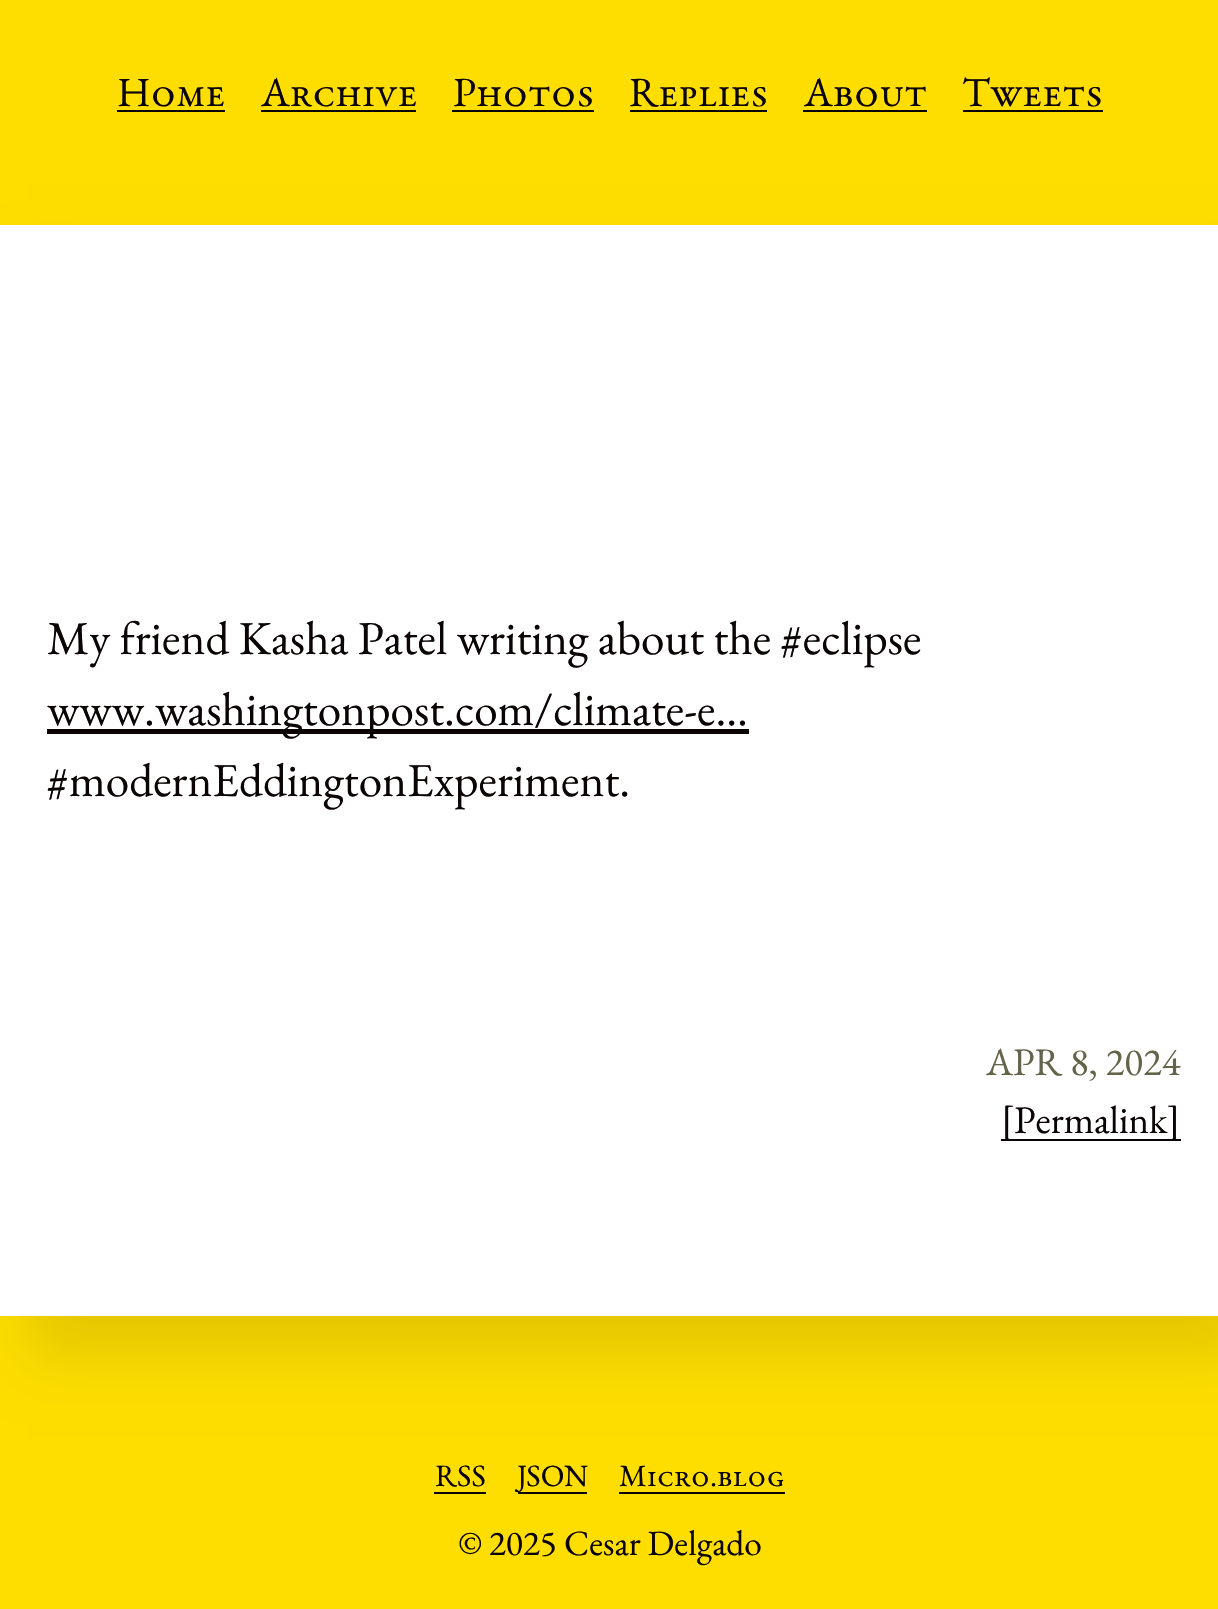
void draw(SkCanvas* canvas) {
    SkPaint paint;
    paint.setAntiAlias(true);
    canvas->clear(0xFFFEDE00);
    SkFont font1(fontMgr->matchFamilyStyle("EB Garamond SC", SkFontStyle::Normal()), 41.5f);
    font1.setSubpixel(true);
    paint.setColor(0xFF0B0404);
    canvas->drawString("Home", 117, 106, font1, paint);
    canvas->drawRect(SkRect::MakeXYWH(117, 110, 108, 2), paint);
    canvas->drawString("Archive", 261, 106, font1, paint);
    canvas->drawRect(SkRect::MakeXYWH(261, 110, 155, 2), paint);
    canvas->drawString("Photos", 453, 106, font1, paint);
    canvas->drawRect(SkRect::MakeXYWH(452, 110, 142, 2), paint);
    canvas->drawString("Replies", 629, 106, font1, paint);
    canvas->drawRect(SkRect::MakeXYWH(630, 110, 137, 2), paint);
    canvas->drawString("About", 804, 106, font1, paint);
    canvas->drawRect(SkRect::MakeXYWH(803, 110, 124, 2), paint);
    canvas->drawString("Tweets", 962, 106, font1, paint);
    canvas->drawRect(SkRect::MakeXYWH(963, 110, 140, 2), paint);
    paint.setColor(0x1A000000);
    paint.setMaskFilter(SkMaskFilter::MakeBlur(kNormal_SkBlurStyle, 27));
    canvas->drawRect(SkRect::MakeXYWH(27, 266, 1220, 1091), paint);
    paint.setMaskFilter(nullptr);
    paint.setColor(0xFFFFFFFF);
    canvas->drawRect(SkRect::MakeXYWH(0, 225, 1218, 1091), paint);
    SkFont font2(fontMgr->matchFamilyStyle("EB Garamond", SkFontStyle::Normal()), 47.25f);
    font2.setSubpixel(true);
    paint.setColor(0xFF0B0404);
    canvas->drawString("My friend Kasha Patel writing about the #eclipse", 47, 654, font2, paint);
    canvas->drawRect(SkRect::MakeXYWH(47, 729, 702, 5), paint);
    canvas->drawString("www.washingtonpost.com/climate-e…", 47, 725, font2, paint);
    canvas->drawString("#modernEddingtonExperiment.", 47, 796, font2, paint);
    SkFont font3(fontMgr->matchFamilyStyle("EB Garamond", SkFontStyle::Normal()), 39);
    font3.setSubpixel(true);
    paint.setColor(0xFF64644B);
    canvas->drawString("APR 8, 2024", 986, 1075, font3, paint);
    paint.setColor(0xFF0B0404);
    canvas->drawRect(SkRect::MakeXYWH(1001, 1139, 180, 2), paint);
    canvas->drawString("[Permalink]", 1001, 1133, font3, paint);
    SkFont font4(fontMgr->matchFamilyStyle("EB Garamond SC", SkFontStyle::Normal()), 31);
    font4.setSubpixel(true);
    canvas->drawString("RSS", 435, 1486, font4, paint);
    canvas->drawRect(SkRect::MakeXYWH(434, 1492, 52, 2), paint);
    canvas->drawRect(SkRect::MakeXYWH(518, 1492, 69, 2), paint);
    canvas->drawString("JSON", 517, 1486, font4, paint);
    canvas->drawString("Micro.blog", 619, 1486, font4, paint);
    canvas->drawRect(SkRect::MakeXYWH(619, 1492, 166, 2), paint);
    SkFont font5(fontMgr->matchFamilyStyle("EB Garamond", SkFontStyle::Normal()), 35.5f);
    font5.setSubpixel(true);
    canvas->drawString("© 2025 Cesar Delgado", 458, 1555, font5, paint);
}
